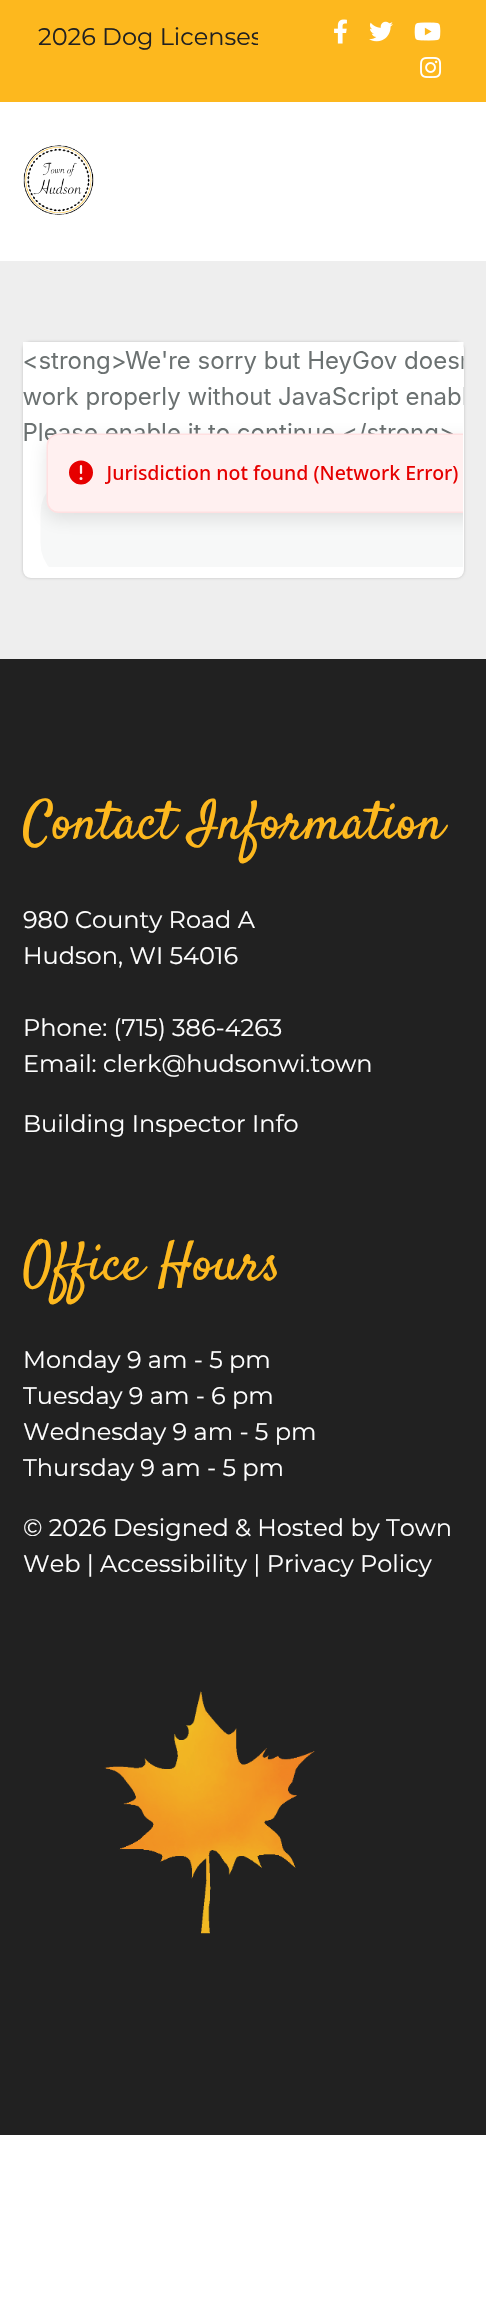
void draw(SkCanvas* canvas) {
    SkPaint paint;
    paint.setAntiAlias(true);
    canvas->clear(0xFFFFFFFF);
    paint.setColor(0xFFFDB81E);
    canvas->drawRect(SkRect::MakeXYWH(0, 0, 486, 102), paint);
    canvas->save();
    canvas->clipRect(SkRect::MakeXYWH(38, 15, 220, 45));
    SkFont font1(fontMgr->matchFamilyStyle("Montserrat", SkFontStyle::Normal()), 24);
    font1.setSubpixel(true);
    paint.setColor(0xFF212121);
    canvas->drawString("2026 Dog Licenses", 38, 45, font1, paint);
    canvas->restore();
    canvas->drawImageRect(SkImages::DeferredFromEncodedData(SkData::MakeFromFileName("img1.png")), SkRect::MakeXYWH(334, 19, 13, 25), SkSamplingOptions());
    canvas->drawImageRect(SkImages::DeferredFromEncodedData(SkData::MakeFromFileName("img2.png")), SkRect::MakeXYWH(369, 21, 24, 21), SkSamplingOptions());
    canvas->drawImageRect(SkImages::DeferredFromEncodedData(SkData::MakeFromFileName("img3.png")), SkRect::MakeXYWH(414, 22, 27, 19), SkSamplingOptions());
    canvas->drawImageRect(SkImages::DeferredFromEncodedData(SkData::MakeFromFileName("img4.png")), SkRect::MakeXYWH(420, 57, 22, 21), SkSamplingOptions());
    canvas->drawImageRect(SkImages::DeferredFromEncodedData(SkData::MakeFromFileName("img5.png")), SkRect::MakeXYWH(23, 145, 71, 70), SkSamplingOptions());
    paint.setColor(0xFFEEEEEE);
    canvas->drawRect(SkRect::MakeXYWH(0, 261, 486, 398), paint);
    paint.setColor(0x33000000);
    paint.setMaskFilter(SkMaskFilter::MakeBlur(kNormal_SkBlurStyle, 1.5f));
    canvas->drawRoundRect(SkRect::MakeXYWH(23, 342, 441, 236), 8, 8, paint);
    paint.setMaskFilter(nullptr);
    paint.setColor(0xFFFFFFFF);
    canvas->drawRoundRect(SkRect::MakeXYWH(23, 342, 441, 236), 8, 8, paint);
    canvas->drawImageRect(SkImages::DeferredFromEncodedData(SkData::MakeFromFileName("img6.png")), SkRect::MakeXYWH(23, 342, 441, 225), SkSamplingOptions());
    paint.setColor(0xFF212121);
    canvas->drawRect(SkRect::MakeXYWH(0, 659, 486, 1476), paint);
    SkFont font2(fontMgr->matchFamilyStyle("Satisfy", SkFontStyle::Normal()), 54);
    font2.setSubpixel(true);
    paint.setColor(0xFFFDB81E);
    canvas->drawString("Contact Information", 23, 838, font2, paint);
    paint.setColor(0xFFFFFFFF);
    canvas->drawString("980 County Road A", 23, 928, font1, paint);
    canvas->drawString("Hudson, WI 54016", 23, 964, font1, paint);
    canvas->drawString("Phone: (715) 386-4263", 23, 1036, font1, paint);
    canvas->drawString("Email: clerk@hudsonwi.town", 23, 1072, font1, paint);
    canvas->drawString("Building Inspector Info", 23, 1132, font1, paint);
    paint.setColor(0xFFFDB81E);
    canvas->drawString("Office Hours", 23, 1279, font2, paint);
    paint.setColor(0xFFFFFFFF);
    canvas->drawString("Monday 9 am - 5 pm", 23, 1368, font1, paint);
    canvas->drawString("Tuesday 9 am - 6 pm", 23, 1404, font1, paint);
    canvas->drawString("Wednesday 9 am - 5 pm", 23, 1440, font1, paint);
    canvas->drawString("Thursday 9 am - 5 pm", 23, 1476, font1, paint);
    canvas->drawString("© 2026 Designed & Hosted by Town", 23, 1536, font1, paint);
    canvas->drawString("Web | Accessibility | Privacy Policy", 23, 1572, font1, paint);
    canvas->drawImageRect(SkImages::DeferredFromEncodedData(SkData::MakeFromFileName("img7.png")), SkRect::MakeXYWH(104, 1691, 211, 243), SkSamplingOptions());
}
